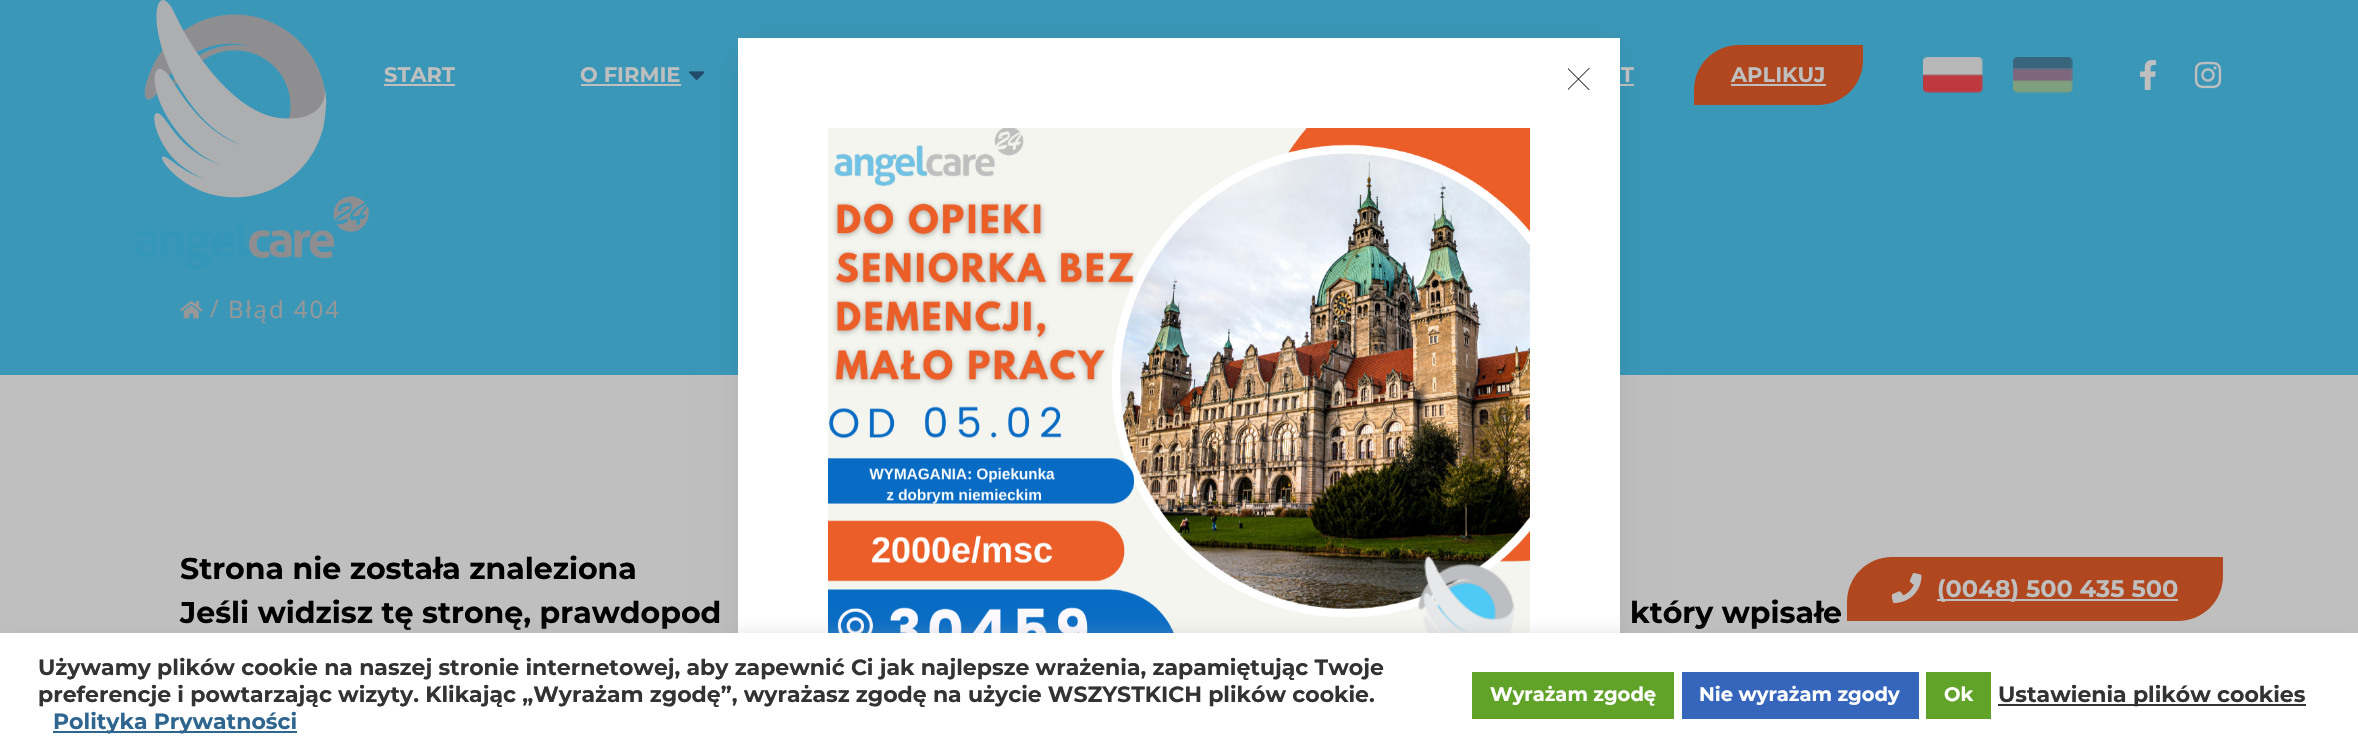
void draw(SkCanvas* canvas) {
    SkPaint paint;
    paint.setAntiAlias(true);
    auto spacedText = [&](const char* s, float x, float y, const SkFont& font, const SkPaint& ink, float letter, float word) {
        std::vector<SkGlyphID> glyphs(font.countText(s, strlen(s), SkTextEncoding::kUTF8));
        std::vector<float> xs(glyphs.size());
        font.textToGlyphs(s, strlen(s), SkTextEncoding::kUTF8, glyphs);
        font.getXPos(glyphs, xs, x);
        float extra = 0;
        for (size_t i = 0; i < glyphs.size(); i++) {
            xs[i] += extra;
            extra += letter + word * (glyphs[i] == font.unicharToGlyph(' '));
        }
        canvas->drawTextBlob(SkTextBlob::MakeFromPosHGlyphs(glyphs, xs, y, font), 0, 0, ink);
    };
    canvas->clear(0xFFBFBFBF);
    paint.setColor(0xFF3B97B8);
    canvas->drawRect(SkRect::MakeXYWH(0, 0, 2358, 375), paint);
    canvas->drawImageRect(SkImages::DeferredFromEncodedData(SkData::MakeFromFileName("img4.png")), SkRect::MakeXYWH(689, 71, 16, 9), SkSamplingOptions());
    paint.setColor(0xFFBFBFBF);
    canvas->drawRect(SkRect::MakeXYWH(1620, 84, 14, 2), paint);
    paint.setColor(0x1A000000);
    paint.setMaskFilter(SkMaskFilter::MakeBlur(kNormal_SkBlurStyle, 19));
    canvas->drawRect(SkRect::MakeXYWH(746, 50, 867, 666), paint);
    paint.setMaskFilter(nullptr);
    paint.setColor(0xFFFFFFFF);
    canvas->drawRect(SkRect::MakeXYWH(738, 38, 882, 595), paint);
    canvas->drawImageRect(SkImages::DeferredFromEncodedData(SkData::MakeFromFileName("img1.png")), SkRect::MakeXYWH(1568, 68, 22, 22), SkSamplingOptions());
    canvas->drawImageRect(SkImages::DeferredFromEncodedData(SkData::MakeFromFileName("img2.png")), SkRect::MakeXYWH(828, 128, 702, 505), SkSamplingOptions());
    canvas->drawImageRect(SkImages::DeferredFromEncodedData(SkData::MakeFromFileName("img3.png")), SkRect::MakeXYWH(135, 0, 234, 270), SkSamplingOptions());
    SkFont font1(fontMgr->matchFamilyStyle("Montserrat", SkFontStyle(100, SkFontStyle::kNormal_Width, SkFontStyle::kUpright_Slant)), 21);
    font1.setSubpixel(true);
    paint.setColor(0xFFBFBFBF);
    canvas->drawString("START", 384, 82, font1, paint);
    canvas->drawRect(SkRect::MakeXYWH(384, 84, 71, 2), paint);
    canvas->drawString("O FIRMIE", 580, 82, font1, paint);
    canvas->drawRect(SkRect::MakeXYWH(581, 84, 100, 2), paint);
    canvas->drawString("T", 1621, 82, font1, paint);
    paint.setColor(0xFFB0471E);
    canvas->drawPath(SkPathBuilder().moveTo(1739, 45).lineTo(1863, 45).lineTo(1863, 60).cubicTo(1863, 85, 1843, 105, 1818, 105).lineTo(1694, 105).lineTo(1694, 90).cubicTo(1694, 65, 1714, 45, 1739, 45).close().detach(), paint);
    paint.setColor(0xFFBFBFBF);
    canvas->drawString("APLIKUJ", 1731, 82, font1, paint);
    canvas->drawRect(SkRect::MakeXYWH(1731, 84, 95, 2), paint);
    canvas->drawImageRect(SkImages::DeferredFromEncodedData(SkData::MakeFromFileName("img5.png")), SkRect::MakeXYWH(1923, 57, 60, 36), SkSamplingOptions());
    canvas->drawImageRect(SkImages::DeferredFromEncodedData(SkData::MakeFromFileName("img6.png")), SkRect::MakeXYWH(2013, 57, 60, 36), SkSamplingOptions());
    canvas->drawImageRect(SkImages::DeferredFromEncodedData(SkData::MakeFromFileName("img7.png")), SkRect::MakeXYWH(2139, 60, 18, 30), SkSamplingOptions());
    canvas->drawImageRect(SkImages::DeferredFromEncodedData(SkData::MakeFromFileName("img8.png")), SkRect::MakeXYWH(2194, 61, 28, 28), SkSamplingOptions());
    canvas->drawImageRect(SkImages::DeferredFromEncodedData(SkData::MakeFromFileName("img9.png")), SkRect::MakeXYWH(180, 301, 23, 18), SkSamplingOptions());
    SkFont font2(fontMgr->matchFamilyStyle("Open Sans", SkFontStyle::Normal()), 24);
    font2.setSubpixel(true);
    paint.setColor(0xFF979797);
    spacedText("/", 210, 317, font2, paint, 2, 0);
    spacedText("Błąd 404", 228, 318, font2, paint, 2, 0);
    SkFont font3(fontMgr->matchFamilyStyle("Montserrat", SkFontStyle(100, SkFontStyle::kNormal_Width, SkFontStyle::kUpright_Slant)), 30);
    font3.setSubpixel(true);
    paint.setColor(0xFF000000);
    canvas->drawString("Strona nie została znaleziona", 180, 579, font3, paint);
    canvas->drawString("Jeśli widzisz tę stronę, prawdopod", 180, 623, font3, paint);
    canvas->drawString("który wpisałe", 1630, 623, font3, paint);
    paint.setColor(0xFFB0471E);
    canvas->drawPath(SkPathBuilder().moveTo(1892, 557).lineTo(2223, 557).lineTo(2223, 576).cubicTo(2223, 601, 2203, 621, 2178, 621).lineTo(1847, 621).lineTo(1847, 602).cubicTo(1847, 577, 1867, 557, 1892, 557).close().detach(), paint);
    paint.setColor(0x4DACABAB);
    paint.setMaskFilter(SkMaskFilter::MakeBlur(kNormal_SkBlurStyle, 7.5f));
    canvas->drawRect(SkRect::MakeXYWH(0, 632, 2358, 123), paint);
    paint.setMaskFilter(nullptr);
    paint.setColor(0xFFFFFFFF);
    canvas->drawRect(SkRect::MakeXYWH(0, 633, 2358, 123), paint);
    SkFont font4(fontMgr->matchFamilyStyle("Montserrat", SkFontStyle(100, SkFontStyle::kNormal_Width, SkFontStyle::kUpright_Slant)), 22);
    font4.setSubpixel(true);
    paint.setColor(0xFF333333);
    canvas->drawString("Używamy plików cookie na naszej stronie internetowej, aby zapewnić Ci jak najlepsze wrażenia, zapamiętując Twoje", 38, 675, font4, paint);
    canvas->drawString("preferencje i powtarzając wizyty. Klikając „Wyrażam zgodę”, wyrażasz zgodę na użycie WSZYSTKICH plików cookie.", 38, 702, font4, paint);
    paint.setColor(0xFF2F6690);
    canvas->drawRect(SkRect::MakeXYWH(53, 731, 244, 2), paint);
    canvas->drawString("Polityka Prywatności", 53, 729, font4, paint);
    paint.setColor(0xFF61A229);
    canvas->drawRect(SkRect::MakeXYWH(1472, 672, 202, 47), paint);
    SkFont font5(fontMgr->matchFamilyStyle("Montserrat", SkFontStyle(100, SkFontStyle::kNormal_Width, SkFontStyle::kUpright_Slant)), 19.5f);
    font5.setSubpixel(true);
    paint.setColor(0xFFFFFFFF);
    canvas->drawString("Wyrażam zgodę", 1490, 701, font5, paint);
    paint.setColor(0xFF3566BB);
    canvas->drawRect(SkRect::MakeXYWH(1682, 672, 237, 47), paint);
    paint.setColor(0xFFFFFFFF);
    canvas->drawString("Nie wyrażam zgody", 1699, 701, font5, paint);
    paint.setColor(0xFF61A229);
    canvas->drawRect(SkRect::MakeXYWH(1926, 672, 65, 47), paint);
    paint.setColor(0xFFFFFFFF);
    canvas->drawString("Ok", 1944, 701, font5, paint);
    paint.setColor(0xFF333333);
    canvas->drawRect(SkRect::MakeXYWH(1998, 704, 308, 2), paint);
    canvas->drawString("Ustawienia plików cookies", 1998, 702, font4, paint);
    canvas->drawImageRect(SkImages::DeferredFromEncodedData(SkData::MakeFromFileName("img10.png")), SkRect::MakeXYWH(1892, 573, 30, 30), SkSamplingOptions());
    paint.setColor(0xFFBFBFBF);
    canvas->drawRect(SkRect::MakeXYWH(1937, 599, 241, 2), paint);
    SkFont font6(fontMgr->matchFamilyStyle("Montserrat", SkFontStyle(100, SkFontStyle::kNormal_Width, SkFontStyle::kUpright_Slant)), 24);
    font6.setSubpixel(true);
    canvas->drawString("(0048) 500 435 500", 1937, 597, font6, paint);
}
